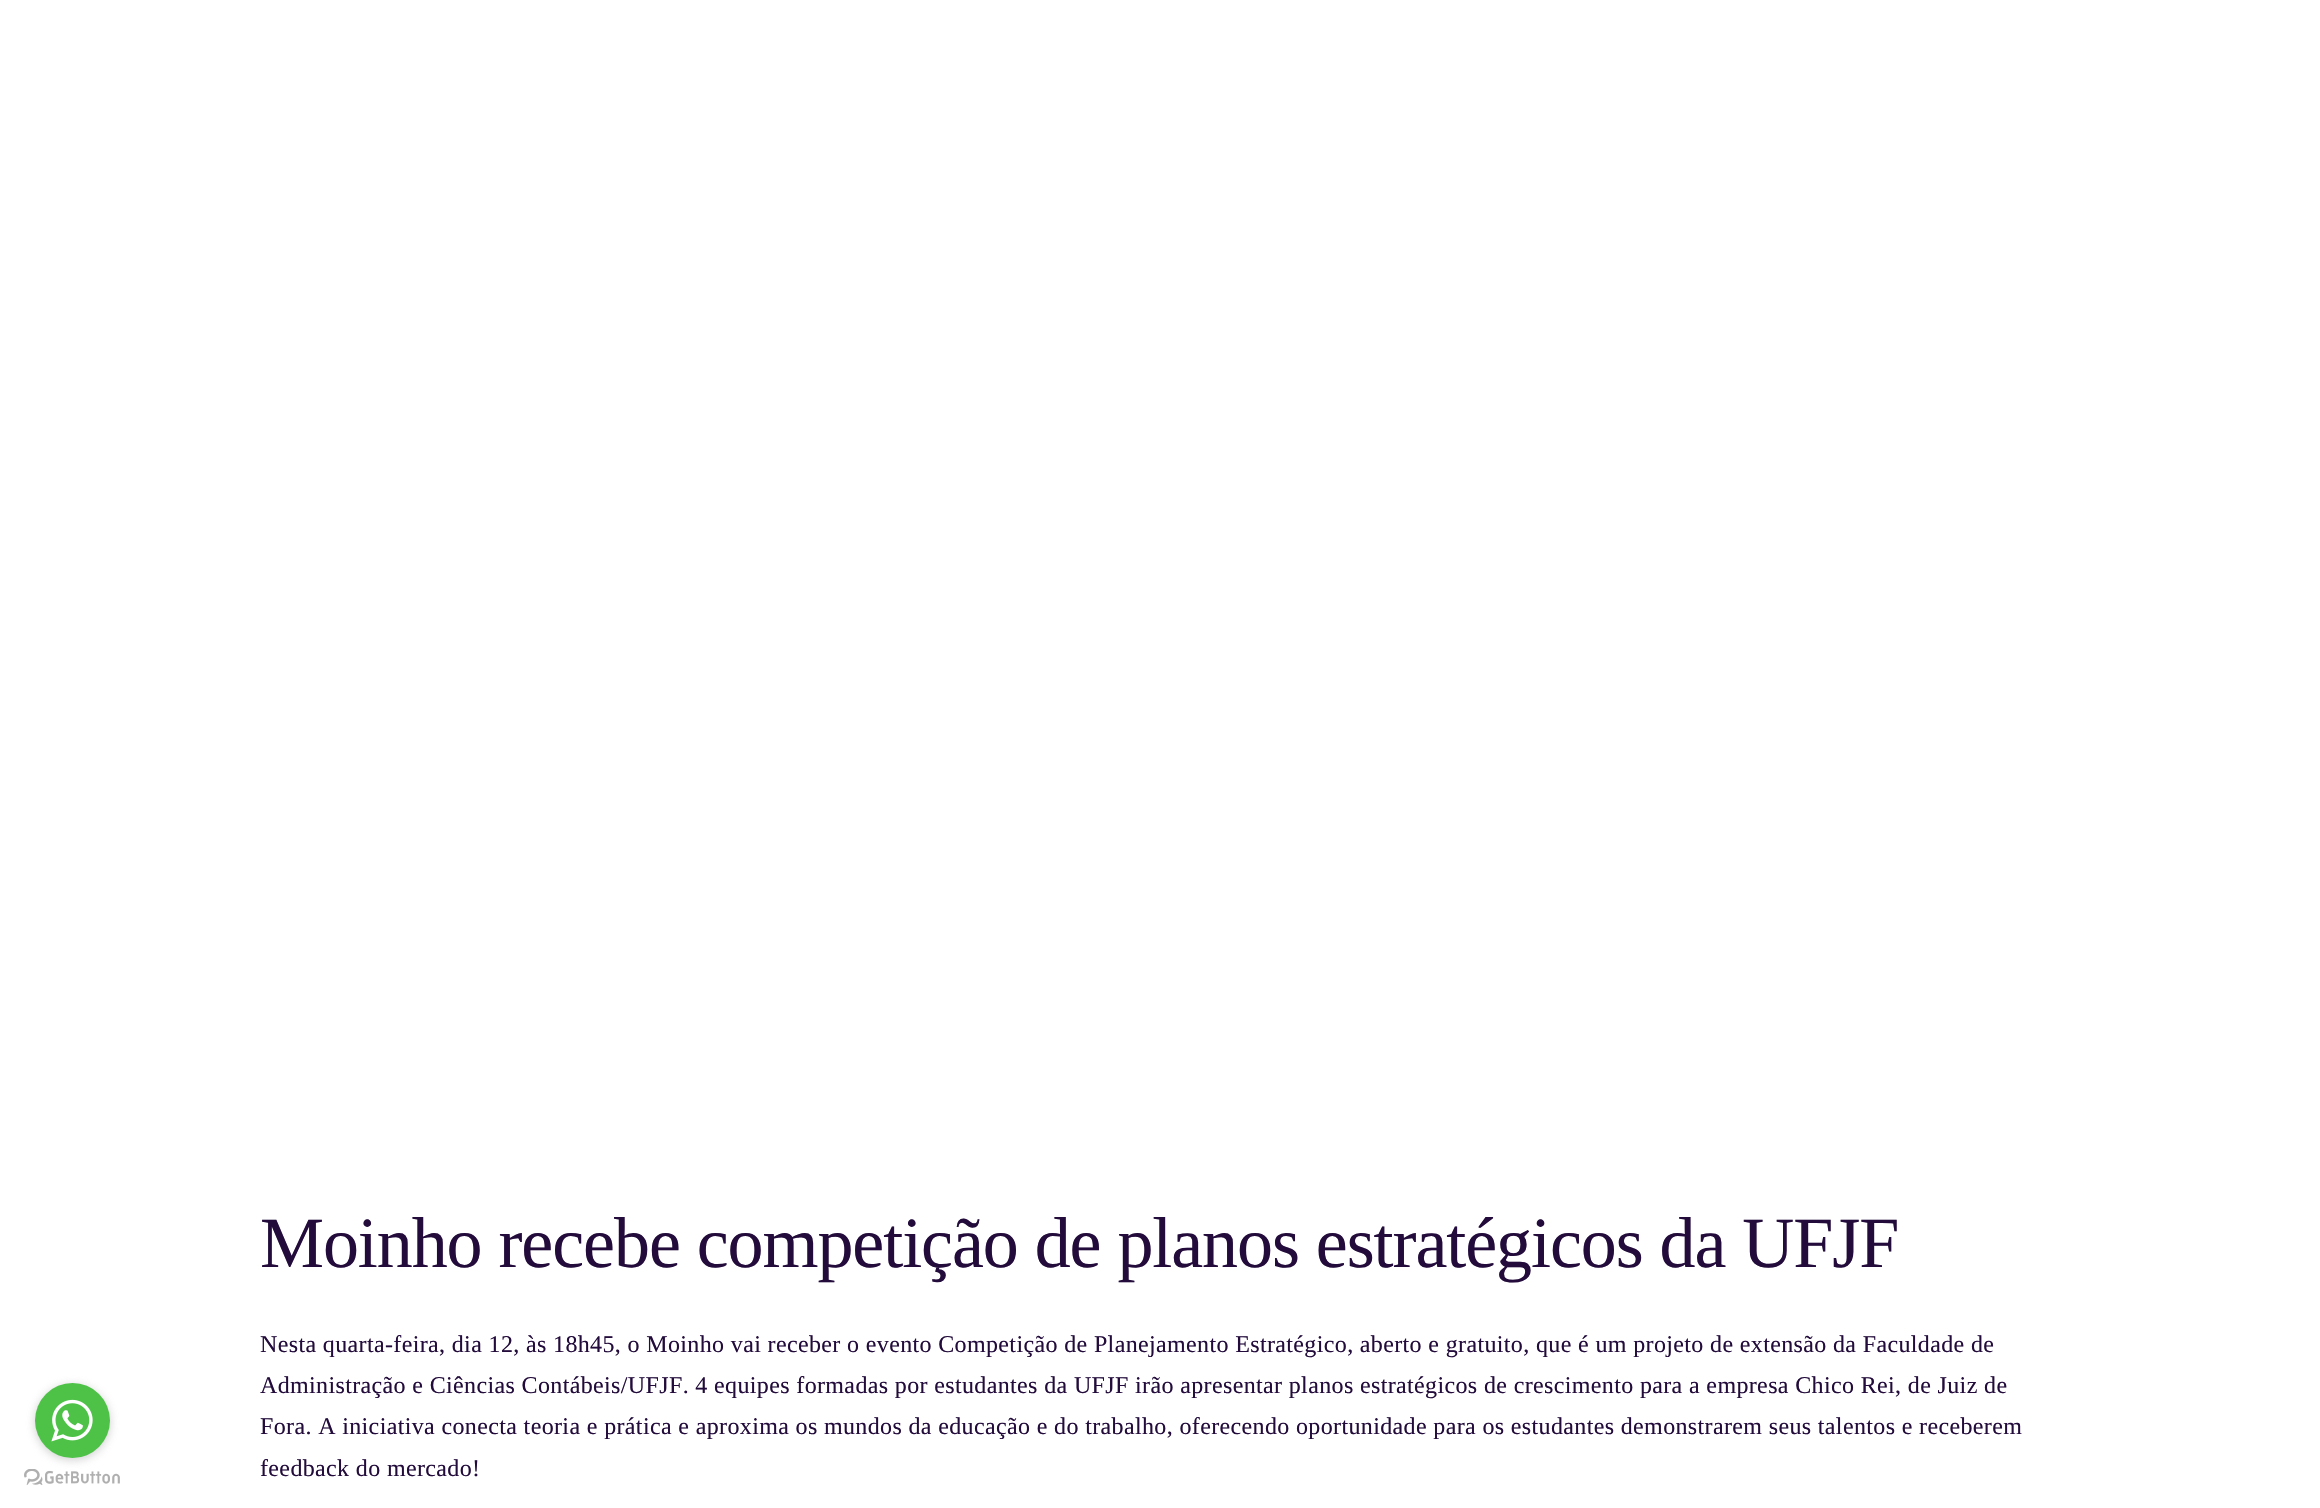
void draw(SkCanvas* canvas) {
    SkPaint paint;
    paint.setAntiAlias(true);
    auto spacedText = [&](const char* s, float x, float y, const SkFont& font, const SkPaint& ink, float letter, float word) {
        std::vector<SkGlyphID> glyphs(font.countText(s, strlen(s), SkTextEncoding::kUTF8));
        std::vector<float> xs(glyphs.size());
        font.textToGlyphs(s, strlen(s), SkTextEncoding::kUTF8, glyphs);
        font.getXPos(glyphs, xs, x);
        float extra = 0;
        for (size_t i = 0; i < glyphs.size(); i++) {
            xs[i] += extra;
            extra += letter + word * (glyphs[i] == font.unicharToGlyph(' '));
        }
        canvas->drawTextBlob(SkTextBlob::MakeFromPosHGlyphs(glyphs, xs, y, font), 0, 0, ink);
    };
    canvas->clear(0xFFFFFFFF);
    canvas->drawImageRect(SkImages::DeferredFromEncodedData(SkData::MakeFromFileName("img2.png")), SkRect::MakeXYWH(24, 1469, 96, 16), SkSamplingOptions());
    paint.setColor(0x66888888);
    paint.setMaskFilter(SkMaskFilter::MakeBlur(kNormal_SkBlurStyle, 5));
    canvas->drawRoundRect(SkRect::MakeXYWH(35, 1385, 75, 75), 37.5f, 37.5f, paint);
    paint.setMaskFilter(nullptr);
    paint.setColor(0xFF4DC247);
    canvas->drawCircle(72.5f, 1420.5f, 37.5f, paint);
    canvas->drawImageRect(SkImages::DeferredFromEncodedData(SkData::MakeFromFileName("img1.png")), SkRect::MakeXYWH(51, 1399, 42, 43), SkSamplingOptions());
    SkFont font1(fontMgr->matchFamilyStyle("Liberation Serif", SkFontStyle::Normal()), 72);
    font1.setSubpixel(true);
    paint.setColor(0xFF230C3B);
    spacedText("Moinho recebe competição de planos estratégicos da UFJF", 260, 1267, font1, paint, -1.08f, 0);
    SkFont font2(fontMgr->matchFamilyStyle("Liberation Serif", SkFontStyle::Normal()), 24);
    font2.setSubpixel(true);
    spacedText("Nesta quarta-feira, dia 12, às 18h45, o Moinho vai receber o evento Competição de Planejamento Estratégico, aberto e gratuito, que é um projeto de extensão da Faculdade de", 260, 1352, font2, paint, 0.36f, 0);
    spacedText("Administração e Ciências Contábeis/UFJF. 4 equipes formadas por estudantes da UFJF irão apresentar planos estratégicos de crescimento para a empresa Chico Rei, de Juiz de", 260, 1393, font2, paint, 0.36f, 0);
    spacedText("Fora. A iniciativa conecta teoria e prática e aproxima os mundos da educação e do trabalho, oferecendo oportunidade para os estudantes demonstrarem seus talentos e receberem", 260, 1434, font2, paint, 0.36f, 0);
    spacedText("feedback do mercado!", 260, 1476, font2, paint, 0.36f, 0);
}
